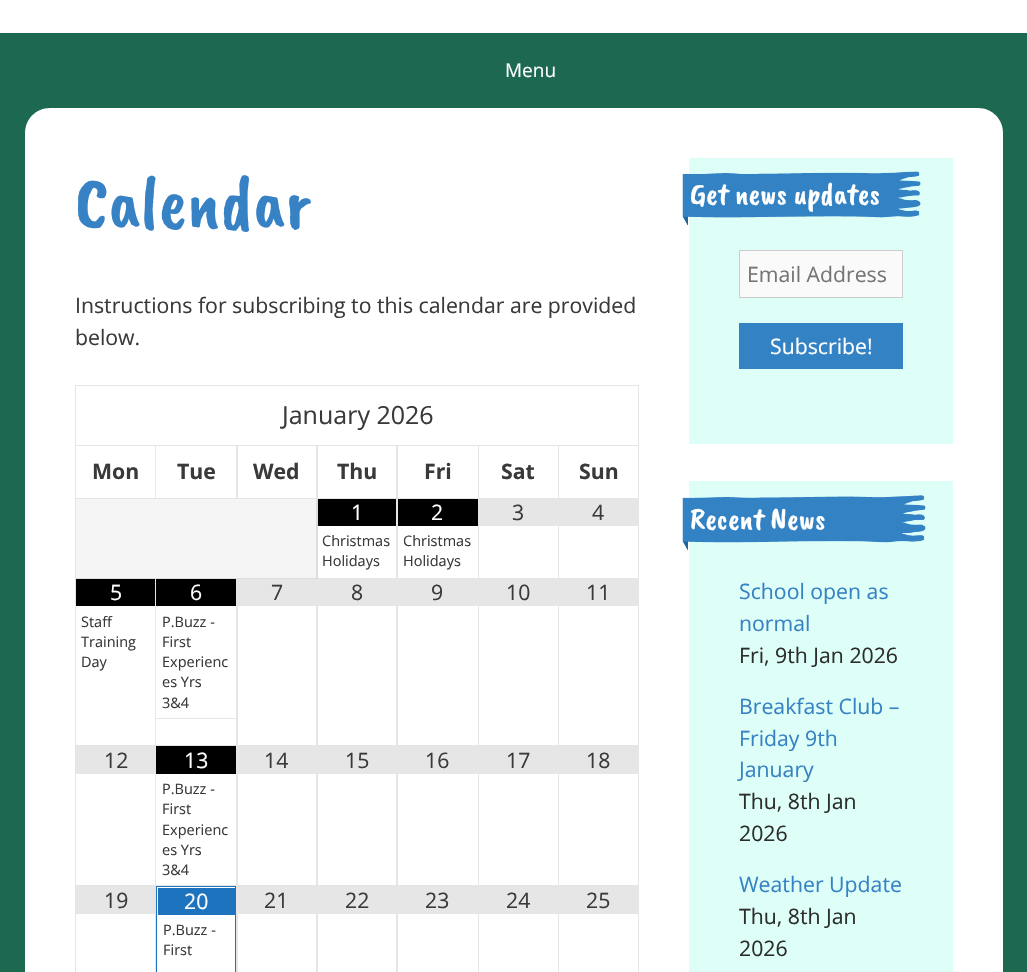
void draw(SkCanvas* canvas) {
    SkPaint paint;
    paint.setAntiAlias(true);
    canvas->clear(0xFF1D6851);
    paint.setColor(0xFFFFFFFF);
    canvas->drawRect(SkRect::MakeXYWH(0, 0, 1027, 33), paint);
    SkFont font1(fontMgr->matchFamilyStyle("Open Sans", SkFontStyle::Normal()), 19);
    font1.setSubpixel(true);
    canvas->drawString("Menu", 505, 77, font1, paint);
    canvas->drawPath(SkPathBuilder().moveTo(50, 108).lineTo(978, 108).cubicTo(992, 108, 1003, 119, 1003, 133).lineTo(1003, 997).lineTo(25, 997).lineTo(25, 133).cubicTo(25, 119, 36, 108, 50, 108).close().detach(), paint);
    SkFont font2(fontMgr->matchFamilyStyle("Caveat Brush", SkFontStyle::Normal()), 75);
    font2.setSubpixel(true);
    paint.setColor(0xFF3782C4);
    canvas->drawString("Calendar", 75, 227, font2, paint);
    SkFont font3(fontMgr->matchFamilyStyle("Open Sans", SkFontStyle::Normal()), 21.25f);
    font3.setSubpixel(true);
    paint.setColor(0xFF3A3A3A);
    canvas->drawString("Instructions for subscribing to this calendar are provided", 75, 313, font3, paint);
    canvas->drawString("below.", 75, 345, font3, paint);
    paint.setColor(0xFFE6E6E6);
    canvas->drawPath(SkPathBuilder().moveTo(75, 385).lineTo(639, 385).lineTo(639, 386).lineTo(76, 386).close().detach(), paint);
    paint.setColor(0x1A000000);
    canvas->drawPath(SkPathBuilder().moveTo(75, 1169).lineTo(75, 385).lineTo(76, 386).lineTo(76, 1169).close().detach(), paint);
    SkFont font4(fontMgr->matchFamilyStyle("Open Sans", SkFontStyle::Normal()), 25);
    font4.setSubpixel(true);
    paint.setColor(0xFF3A3A3A);
    canvas->drawString("January 2026", 282, 424, font4, paint);
    paint.setColor(0xFFE6E6E6);
    canvas->drawPath(SkPathBuilder().moveTo(639, 386).lineTo(639, 446).lineTo(638, 445).lineTo(638, 386).close().detach(), paint);
    paint.setColor(0x1A000000);
    canvas->drawPath(SkPathBuilder().moveTo(639, 446).lineTo(559, 446).lineTo(559, 445).lineTo(638, 445).close().detach(), paint);
    paint.setColor(0xFFE6E6E6);
    canvas->drawRect(SkRect::MakeXYWH(76, 445, 483, 1), paint);
    canvas->drawPath(SkPathBuilder().moveTo(156, 446).lineTo(156, 499).lineTo(155, 498).lineTo(155, 446).close().detach(), paint);
    paint.setColor(0x1A000000);
    canvas->drawPath(SkPathBuilder().moveTo(156, 499).lineTo(76, 499).lineTo(76, 498).lineTo(155, 498).close().detach(), paint);
    SkFont font5(fontMgr->matchFamilyStyle("Open Sans", SkFontStyle::Bold()), 21.25f);
    font5.setSubpixel(true);
    paint.setColor(0xFF3A3A3A);
    canvas->drawString("Mon", 92, 479, font5, paint);
    paint.setColor(0xFFE6E6E6);
    canvas->drawPath(SkPathBuilder().moveTo(238, 446).lineTo(238, 499).lineTo(236, 498).lineTo(236, 446).close().detach(), paint);
    paint.setColor(0x1A000000);
    canvas->drawPath(SkPathBuilder().moveTo(238, 499).lineTo(156, 499).lineTo(156, 498).lineTo(236, 498).close().detach(), paint);
    paint.setColor(0xFF3A3A3A);
    canvas->drawString("Tue", 177, 479, font5, paint);
    paint.setColor(0xFFE6E6E6);
    canvas->drawPath(SkPathBuilder().moveTo(318, 446).lineTo(318, 499).lineTo(316, 498).lineTo(316, 446).close().detach(), paint);
    paint.setColor(0x1A000000);
    canvas->drawPath(SkPathBuilder().moveTo(318, 499).lineTo(238, 499).lineTo(238, 498).lineTo(316, 498).close().detach(), paint);
    paint.setColor(0xFF3A3A3A);
    canvas->drawString("Wed", 253, 479, font5, paint);
    paint.setColor(0xFFE6E6E6);
    canvas->drawPath(SkPathBuilder().moveTo(398, 446).lineTo(398, 499).lineTo(396, 498).lineTo(396, 446).close().detach(), paint);
    paint.setColor(0x1A000000);
    canvas->drawPath(SkPathBuilder().moveTo(398, 499).lineTo(318, 499).lineTo(318, 498).lineTo(396, 498).close().detach(), paint);
    paint.setColor(0xFF3A3A3A);
    canvas->drawString("Thu", 337, 479, font5, paint);
    paint.setColor(0xFFE6E6E6);
    canvas->drawPath(SkPathBuilder().moveTo(479, 446).lineTo(479, 499).lineTo(478, 498).lineTo(478, 446).close().detach(), paint);
    paint.setColor(0x1A000000);
    canvas->drawPath(SkPathBuilder().moveTo(479, 499).lineTo(398, 499).lineTo(398, 498).lineTo(478, 498).close().detach(), paint);
    paint.setColor(0xFF3A3A3A);
    canvas->drawString("Fri", 424, 479, font5, paint);
    paint.setColor(0xFFE6E6E6);
    canvas->drawPath(SkPathBuilder().moveTo(559, 446).lineTo(559, 499).lineTo(558, 498).lineTo(558, 446).close().detach(), paint);
    paint.setColor(0x1A000000);
    canvas->drawPath(SkPathBuilder().moveTo(559, 499).lineTo(479, 499).lineTo(479, 498).lineTo(558, 498).close().detach(), paint);
    paint.setColor(0xFF3A3A3A);
    canvas->drawString("Sat", 501, 479, font5, paint);
    paint.setColor(0xFFE6E6E6);
    canvas->drawPath(SkPathBuilder().moveTo(639, 446).lineTo(639, 499).lineTo(638, 498).lineTo(638, 446).close().detach(), paint);
    paint.setColor(0x1A000000);
    canvas->drawPath(SkPathBuilder().moveTo(639, 499).lineTo(559, 499).lineTo(559, 498).lineTo(638, 498).close().detach(), paint);
    paint.setColor(0xFF3A3A3A);
    canvas->drawString("Sun", 579, 479, font5, paint);
    paint.setColor(0xFFF5F5F5);
    canvas->drawRect(SkRect::MakeXYWH(76, 499, 162, 79), paint);
    paint.setColor(0xFFDDDDDD);
    canvas->drawRect(SkRect::MakeXYWH(76, 578, 162, 1), paint);
    paint.setColor(0xFFF5F5F5);
    canvas->drawRect(SkRect::MakeXYWH(238, 499, 80, 80), paint);
    paint.setColor(0xFFDDDDDD);
    canvas->drawPath(SkPathBuilder().moveTo(318, 499).lineTo(318, 579).lineTo(316, 578).lineTo(316, 499).close().detach(), paint);
    paint.setColor(0x1A000000);
    canvas->drawPath(SkPathBuilder().moveTo(318, 579).lineTo(238, 579).lineTo(238, 578).lineTo(316, 578).close().detach(), paint);
    paint.setColor(0xFFE6E6E6);
    canvas->drawPath(SkPathBuilder().moveTo(398, 499).lineTo(398, 579).lineTo(396, 578).lineTo(396, 499).close().detach(), paint);
    paint.setColor(0x1A000000);
    canvas->drawPath(SkPathBuilder().moveTo(398, 579).lineTo(318, 579).lineTo(318, 578).lineTo(396, 578).close().detach(), paint);
    paint.setColor(0xFF000000);
    canvas->drawRect(SkRect::MakeXYWH(318, 499, 78, 27), paint);
    paint.setColor(0xFFFFFFFF);
    canvas->drawString("1", 351, 520, font3, paint);
    SkFont font6(fontMgr->matchFamilyStyle("Open Sans", SkFontStyle::Normal()), 14.5f);
    font6.setSubpixel(true);
    paint.setColor(0xFF3A3A3A);
    canvas->drawString("Christmas", 322, 546, font6, paint);
    canvas->drawString("Holidays", 322, 566, font6, paint);
    paint.setColor(0xFFE6E6E6);
    canvas->drawPath(SkPathBuilder().moveTo(479, 499).lineTo(479, 579).lineTo(478, 578).lineTo(478, 499).close().detach(), paint);
    paint.setColor(0x1A000000);
    canvas->drawPath(SkPathBuilder().moveTo(479, 579).lineTo(398, 579).lineTo(398, 578).lineTo(478, 578).close().detach(), paint);
    paint.setColor(0xFF000000);
    canvas->drawRect(SkRect::MakeXYWH(398, 499, 80, 27), paint);
    paint.setColor(0xFFFFFFFF);
    canvas->drawString("2", 431, 520, font3, paint);
    paint.setColor(0xFF3A3A3A);
    canvas->drawString("Christmas", 403, 546, font6, paint);
    canvas->drawString("Holidays", 403, 566, font6, paint);
    paint.setColor(0xFFE6E6E6);
    canvas->drawPath(SkPathBuilder().moveTo(559, 499).lineTo(559, 579).lineTo(558, 578).lineTo(558, 499).close().detach(), paint);
    paint.setColor(0x1A000000);
    canvas->drawPath(SkPathBuilder().moveTo(559, 579).lineTo(479, 579).lineTo(479, 578).lineTo(558, 578).close().detach(), paint);
    paint.setColor(0xFFE6E6E6);
    canvas->drawRect(SkRect::MakeXYWH(479, 499, 79, 27), paint);
    paint.setColor(0xFF3A3A3A);
    canvas->drawString("3", 512, 520, font3, paint);
    paint.setColor(0xFFE6E6E6);
    canvas->drawPath(SkPathBuilder().moveTo(639, 499).lineTo(639, 579).lineTo(638, 578).lineTo(638, 499).close().detach(), paint);
    paint.setColor(0x1A000000);
    canvas->drawPath(SkPathBuilder().moveTo(639, 579).lineTo(559, 579).lineTo(559, 578).lineTo(638, 578).close().detach(), paint);
    paint.setColor(0xFFE6E6E6);
    canvas->drawRect(SkRect::MakeXYWH(559, 499, 79, 27), paint);
    paint.setColor(0xFF3A3A3A);
    canvas->drawString("4", 592, 520, font3, paint);
    paint.setColor(0xFFE6E6E6);
    canvas->drawPath(SkPathBuilder().moveTo(156, 579).lineTo(156, 746).lineTo(155, 745).lineTo(155, 579).close().detach(), paint);
    paint.setColor(0x1A000000);
    canvas->drawPath(SkPathBuilder().moveTo(156, 746).lineTo(76, 746).lineTo(76, 745).lineTo(155, 745).close().detach(), paint);
    paint.setColor(0xFF000000);
    canvas->drawRect(SkRect::MakeXYWH(76, 579, 79, 27), paint);
    paint.setColor(0xFFFFFFFF);
    canvas->drawString("5", 110, 600, font3, paint);
    paint.setColor(0xFF3A3A3A);
    canvas->drawString("Staff", 81, 627, font6, paint);
    canvas->drawString("Training", 81, 647, font6, paint);
    canvas->drawString("Day", 81, 667, font6, paint);
    paint.setColor(0xFFE6E6E6);
    canvas->drawPath(SkPathBuilder().moveTo(238, 579).lineTo(238, 746).lineTo(236, 745).lineTo(236, 579).close().detach(), paint);
    paint.setColor(0x1A000000);
    canvas->drawPath(SkPathBuilder().moveTo(238, 746).lineTo(156, 746).lineTo(156, 745).lineTo(236, 745).close().detach(), paint);
    paint.setColor(0xFF000000);
    canvas->drawRect(SkRect::MakeXYWH(156, 579, 80, 27), paint);
    paint.setColor(0xFFFFFFFF);
    canvas->drawString("6", 190, 600, font3, paint);
    paint.setColor(0xFFE6E6E6);
    canvas->drawRect(SkRect::MakeXYWH(156, 718, 80, 1), paint);
    paint.setColor(0xFF3A3A3A);
    canvas->drawString("P.Buzz -", 162, 627, font6, paint);
    canvas->drawString("First", 162, 647, font6, paint);
    canvas->drawString("Experienc", 162, 667, font6, paint);
    canvas->drawString("es Yrs", 162, 687, font6, paint);
    canvas->drawString("3&4", 162, 708, font6, paint);
    paint.setColor(0xFFE6E6E6);
    canvas->drawPath(SkPathBuilder().moveTo(318, 579).lineTo(318, 746).lineTo(316, 745).lineTo(316, 579).close().detach(), paint);
    paint.setColor(0x1A000000);
    canvas->drawPath(SkPathBuilder().moveTo(318, 746).lineTo(238, 746).lineTo(238, 745).lineTo(316, 745).close().detach(), paint);
    paint.setColor(0xFFE6E6E6);
    canvas->drawRect(SkRect::MakeXYWH(238, 579, 78, 27), paint);
    paint.setColor(0xFF3A3A3A);
    canvas->drawString("7", 271, 600, font3, paint);
    paint.setColor(0xFFE6E6E6);
    canvas->drawPath(SkPathBuilder().moveTo(398, 579).lineTo(398, 746).lineTo(396, 745).lineTo(396, 579).close().detach(), paint);
    paint.setColor(0x1A000000);
    canvas->drawPath(SkPathBuilder().moveTo(398, 746).lineTo(318, 746).lineTo(318, 745).lineTo(396, 745).close().detach(), paint);
    paint.setColor(0xFFE6E6E6);
    canvas->drawRect(SkRect::MakeXYWH(318, 579, 78, 27), paint);
    paint.setColor(0xFF3A3A3A);
    canvas->drawString("8", 351, 600, font3, paint);
    paint.setColor(0xFFE6E6E6);
    canvas->drawPath(SkPathBuilder().moveTo(479, 579).lineTo(479, 746).lineTo(478, 745).lineTo(478, 579).close().detach(), paint);
    paint.setColor(0x1A000000);
    canvas->drawPath(SkPathBuilder().moveTo(479, 746).lineTo(398, 746).lineTo(398, 745).lineTo(478, 745).close().detach(), paint);
    paint.setColor(0xFFE6E6E6);
    canvas->drawRect(SkRect::MakeXYWH(398, 579, 80, 27), paint);
    paint.setColor(0xFF3A3A3A);
    canvas->drawString("9", 431, 600, font3, paint);
    paint.setColor(0xFFE6E6E6);
    canvas->drawPath(SkPathBuilder().moveTo(559, 579).lineTo(559, 746).lineTo(558, 745).lineTo(558, 579).close().detach(), paint);
    paint.setColor(0x1A000000);
    canvas->drawPath(SkPathBuilder().moveTo(559, 746).lineTo(479, 746).lineTo(479, 745).lineTo(558, 745).close().detach(), paint);
    paint.setColor(0xFFE6E6E6);
    canvas->drawRect(SkRect::MakeXYWH(479, 579, 79, 27), paint);
    paint.setColor(0xFF3A3A3A);
    canvas->drawString("10", 506, 600, font3, paint);
    paint.setColor(0xFFE6E6E6);
    canvas->drawPath(SkPathBuilder().moveTo(639, 579).lineTo(639, 746).lineTo(638, 745).lineTo(638, 579).close().detach(), paint);
    paint.setColor(0x1A000000);
    canvas->drawPath(SkPathBuilder().moveTo(639, 746).lineTo(559, 746).lineTo(559, 745).lineTo(638, 745).close().detach(), paint);
    paint.setColor(0xFFE6E6E6);
    canvas->drawRect(SkRect::MakeXYWH(559, 579, 79, 27), paint);
    paint.setColor(0xFF3A3A3A);
    canvas->drawString("11", 586, 600, font3, paint);
    paint.setColor(0xFFE6E6E6);
    canvas->drawPath(SkPathBuilder().moveTo(156, 746).lineTo(156, 886).lineTo(155, 885).lineTo(155, 746).close().detach(), paint);
    paint.setColor(0x1A000000);
    canvas->drawPath(SkPathBuilder().moveTo(156, 886).lineTo(76, 886).lineTo(76, 885).lineTo(155, 885).close().detach(), paint);
    paint.setColor(0xFFE6E6E6);
    canvas->drawRect(SkRect::MakeXYWH(76, 746, 79, 28), paint);
    paint.setColor(0xFF3A3A3A);
    canvas->drawString("12", 104, 768, font3, paint);
    paint.setColor(0xFFE6E6E6);
    canvas->drawPath(SkPathBuilder().moveTo(238, 746).lineTo(238, 886).lineTo(236, 885).lineTo(236, 746).close().detach(), paint);
    paint.setColor(0x1A000000);
    canvas->drawPath(SkPathBuilder().moveTo(238, 886).lineTo(156, 886).lineTo(156, 885).lineTo(236, 885).close().detach(), paint);
    paint.setColor(0xFF000000);
    canvas->drawRect(SkRect::MakeXYWH(156, 746, 80, 28), paint);
    paint.setColor(0xFFFFFFFF);
    canvas->drawString("13", 184, 768, font3, paint);
    paint.setColor(0xFF3A3A3A);
    canvas->drawString("P.Buzz -", 162, 794, font6, paint);
    canvas->drawString("First", 162, 814, font6, paint);
    canvas->drawString("Experienc", 162, 835, font6, paint);
    canvas->drawString("es Yrs", 162, 855, font6, paint);
    canvas->drawString("3&4", 162, 875, font6, paint);
    paint.setColor(0xFFE6E6E6);
    canvas->drawPath(SkPathBuilder().moveTo(318, 746).lineTo(318, 886).lineTo(316, 885).lineTo(316, 746).close().detach(), paint);
    paint.setColor(0x1A000000);
    canvas->drawPath(SkPathBuilder().moveTo(318, 886).lineTo(238, 886).lineTo(238, 885).lineTo(316, 885).close().detach(), paint);
    paint.setColor(0xFFE6E6E6);
    canvas->drawRect(SkRect::MakeXYWH(238, 746, 78, 28), paint);
    paint.setColor(0xFF3A3A3A);
    canvas->drawString("14", 264, 768, font3, paint);
    paint.setColor(0xFFE6E6E6);
    canvas->drawPath(SkPathBuilder().moveTo(398, 746).lineTo(398, 886).lineTo(396, 885).lineTo(396, 746).close().detach(), paint);
    paint.setColor(0x1A000000);
    canvas->drawPath(SkPathBuilder().moveTo(398, 886).lineTo(318, 886).lineTo(318, 885).lineTo(396, 885).close().detach(), paint);
    paint.setColor(0xFFE6E6E6);
    canvas->drawRect(SkRect::MakeXYWH(318, 746, 78, 28), paint);
    paint.setColor(0xFF3A3A3A);
    canvas->drawString("15", 345, 768, font3, paint);
    paint.setColor(0xFFE6E6E6);
    canvas->drawPath(SkPathBuilder().moveTo(479, 746).lineTo(479, 886).lineTo(478, 885).lineTo(478, 746).close().detach(), paint);
    paint.setColor(0x1A000000);
    canvas->drawPath(SkPathBuilder().moveTo(479, 886).lineTo(398, 886).lineTo(398, 885).lineTo(478, 885).close().detach(), paint);
    paint.setColor(0xFFE6E6E6);
    canvas->drawRect(SkRect::MakeXYWH(398, 746, 80, 28), paint);
    paint.setColor(0xFF3A3A3A);
    canvas->drawString("16", 425, 768, font3, paint);
    paint.setColor(0xFFE6E6E6);
    canvas->drawPath(SkPathBuilder().moveTo(559, 746).lineTo(559, 886).lineTo(558, 885).lineTo(558, 746).close().detach(), paint);
    paint.setColor(0x1A000000);
    canvas->drawPath(SkPathBuilder().moveTo(559, 886).lineTo(479, 886).lineTo(479, 885).lineTo(558, 885).close().detach(), paint);
    paint.setColor(0xFFE6E6E6);
    canvas->drawRect(SkRect::MakeXYWH(479, 746, 79, 28), paint);
    paint.setColor(0xFF3A3A3A);
    canvas->drawString("17", 506, 768, font3, paint);
    paint.setColor(0xFFE6E6E6);
    canvas->drawPath(SkPathBuilder().moveTo(639, 746).lineTo(639, 886).lineTo(638, 885).lineTo(638, 746).close().detach(), paint);
    paint.setColor(0x1A000000);
    canvas->drawPath(SkPathBuilder().moveTo(639, 886).lineTo(559, 886).lineTo(559, 885).lineTo(638, 885).close().detach(), paint);
    paint.setColor(0xFFE6E6E6);
    canvas->drawRect(SkRect::MakeXYWH(559, 746, 79, 28), paint);
    paint.setColor(0xFF3A3A3A);
    canvas->drawString("18", 586, 768, font3, paint);
    paint.setColor(0xFFE6E6E6);
    canvas->drawPath(SkPathBuilder().moveTo(156, 886).lineTo(156, 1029).lineTo(155, 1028).lineTo(155, 886).close().detach(), paint);
    canvas->drawRect(SkRect::MakeXYWH(76, 886, 79, 28), paint);
    paint.setColor(0xFF3A3A3A);
    canvas->drawString("19", 104, 908, font3, paint);
    paint.setColor(0xFFE6E6E6);
    canvas->drawPath(SkPathBuilder().moveTo(238, 886).lineTo(238, 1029).lineTo(236, 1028).lineTo(236, 886).close().detach(), paint);
    paint.setStyle(SkPaint::kStroke_Style);
    paint.setStrokeWidth(1);
    paint.setColor(0xFF1E73BE);
    canvas->drawRect(SkRect::MakeXYWH(156.5f, 886.5f, 79, 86), paint);
    paint.setStyle(SkPaint::kFill_Style);
    canvas->drawRect(SkRect::MakeXYWH(158, 888, 77, 27), paint);
    paint.setColor(0xFFFFFFFF);
    canvas->drawString("20", 184, 909, font3, paint);
    paint.setColor(0xFF3A3A3A);
    canvas->drawString("P.Buzz -", 163, 935, font6, paint);
    canvas->drawString("First", 163, 955, font6, paint);
    paint.setColor(0xFFE6E6E6);
    canvas->drawPath(SkPathBuilder().moveTo(318, 886).lineTo(318, 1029).lineTo(316, 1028).lineTo(316, 886).close().detach(), paint);
    canvas->drawRect(SkRect::MakeXYWH(238, 886, 78, 28), paint);
    paint.setColor(0xFF3A3A3A);
    canvas->drawString("21", 264, 908, font3, paint);
    paint.setColor(0xFFE6E6E6);
    canvas->drawPath(SkPathBuilder().moveTo(398, 886).lineTo(398, 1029).lineTo(396, 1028).lineTo(396, 886).close().detach(), paint);
    canvas->drawRect(SkRect::MakeXYWH(318, 886, 78, 28), paint);
    paint.setColor(0xFF3A3A3A);
    canvas->drawString("22", 345, 908, font3, paint);
    paint.setColor(0xFFE6E6E6);
    canvas->drawPath(SkPathBuilder().moveTo(479, 886).lineTo(479, 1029).lineTo(478, 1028).lineTo(478, 886).close().detach(), paint);
    canvas->drawRect(SkRect::MakeXYWH(398, 886, 80, 28), paint);
    paint.setColor(0xFF3A3A3A);
    canvas->drawString("23", 425, 908, font3, paint);
    paint.setColor(0xFFE6E6E6);
    canvas->drawPath(SkPathBuilder().moveTo(559, 886).lineTo(559, 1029).lineTo(558, 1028).lineTo(558, 886).close().detach(), paint);
    canvas->drawRect(SkRect::MakeXYWH(479, 886, 79, 28), paint);
    paint.setColor(0xFF3A3A3A);
    canvas->drawString("24", 506, 908, font3, paint);
    paint.setColor(0xFFE6E6E6);
    canvas->drawPath(SkPathBuilder().moveTo(639, 886).lineTo(639, 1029).lineTo(638, 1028).lineTo(638, 886).close().detach(), paint);
    canvas->drawRect(SkRect::MakeXYWH(559, 886, 79, 28), paint);
    paint.setColor(0xFF3A3A3A);
    canvas->drawString("25", 586, 908, font3, paint);
    paint.setColor(0xFFDDFFF8);
    canvas->drawRect(SkRect::MakeXYWH(689, 158, 264, 286), paint);
    canvas->drawImageRect(SkImages::DeferredFromEncodedData(SkData::MakeFromFileName("img1.png")), SkRect::MakeXYWH(682, 171, 239, 54), SkSamplingOptions());
    SkFont font7(fontMgr->matchFamilyStyle("Caveat Brush", SkFontStyle::Normal()), 30.75f);
    font7.setSubpixel(true);
    paint.setColor(0xFFFFFFFF);
    canvas->drawString("Get news updates", 690, 204, font7, paint);
    paint.setColor(0xFFFAFAFA);
    canvas->drawRect(SkRect::MakeXYWH(739.5f, 250.5f, 163, 47), paint);
    paint.setStyle(SkPaint::kStroke_Style);
    paint.setColor(0xFFCCCCCC);
    canvas->drawRect(SkRect::MakeXYWH(739.5f, 250.5f, 163, 47), paint);
    paint.setStyle(SkPaint::kFill_Style);
    paint.setColor(0xFF757575);
    canvas->drawString("Email Address", 747, 282, font3, paint);
    paint.setColor(0xFF3282C4);
    canvas->drawRect(SkRect::MakeXYWH(739, 323, 164, 46), paint);
    paint.setColor(0xFFFFFFFF);
    canvas->drawString("Subscribe!", 770, 354, font3, paint);
    paint.setColor(0xFFDDFFF8);
    canvas->drawRect(SkRect::MakeXYWH(689, 481, 264, 491), paint);
    canvas->drawImageRect(SkImages::DeferredFromEncodedData(SkData::MakeFromFileName("img2.png")), SkRect::MakeXYWH(682, 495, 244, 55), SkSamplingOptions());
    paint.setColor(0xFFFFFFFF);
    canvas->drawString("Recent News", 690, 529, font7, paint);
    paint.setColor(0xFF3782C4);
    canvas->drawString("School open as", 739, 599, font3, paint);
    canvas->drawString("normal", 739, 631, font3, paint);
    paint.setColor(0xFF2D2D2D);
    canvas->drawString("Fri, 9th Jan 2026", 739, 663, font3, paint);
    paint.setColor(0xFF3782C4);
    canvas->drawString("Breakfast Club –", 739, 714, font3, paint);
    canvas->drawString("Friday 9th", 739, 746, font3, paint);
    canvas->drawString("January", 739, 777, font3, paint);
    paint.setColor(0xFF2D2D2D);
    canvas->drawString("Thu, 8th Jan", 739, 809, font3, paint);
    canvas->drawString("2026", 739, 841, font3, paint);
    paint.setColor(0xFF3782C4);
    canvas->drawString("Weather Update", 739, 892, font3, paint);
    paint.setColor(0xFF2D2D2D);
    canvas->drawString("Thu, 8th Jan", 739, 924, font3, paint);
    canvas->drawString("2026", 739, 956, font3, paint);
}
